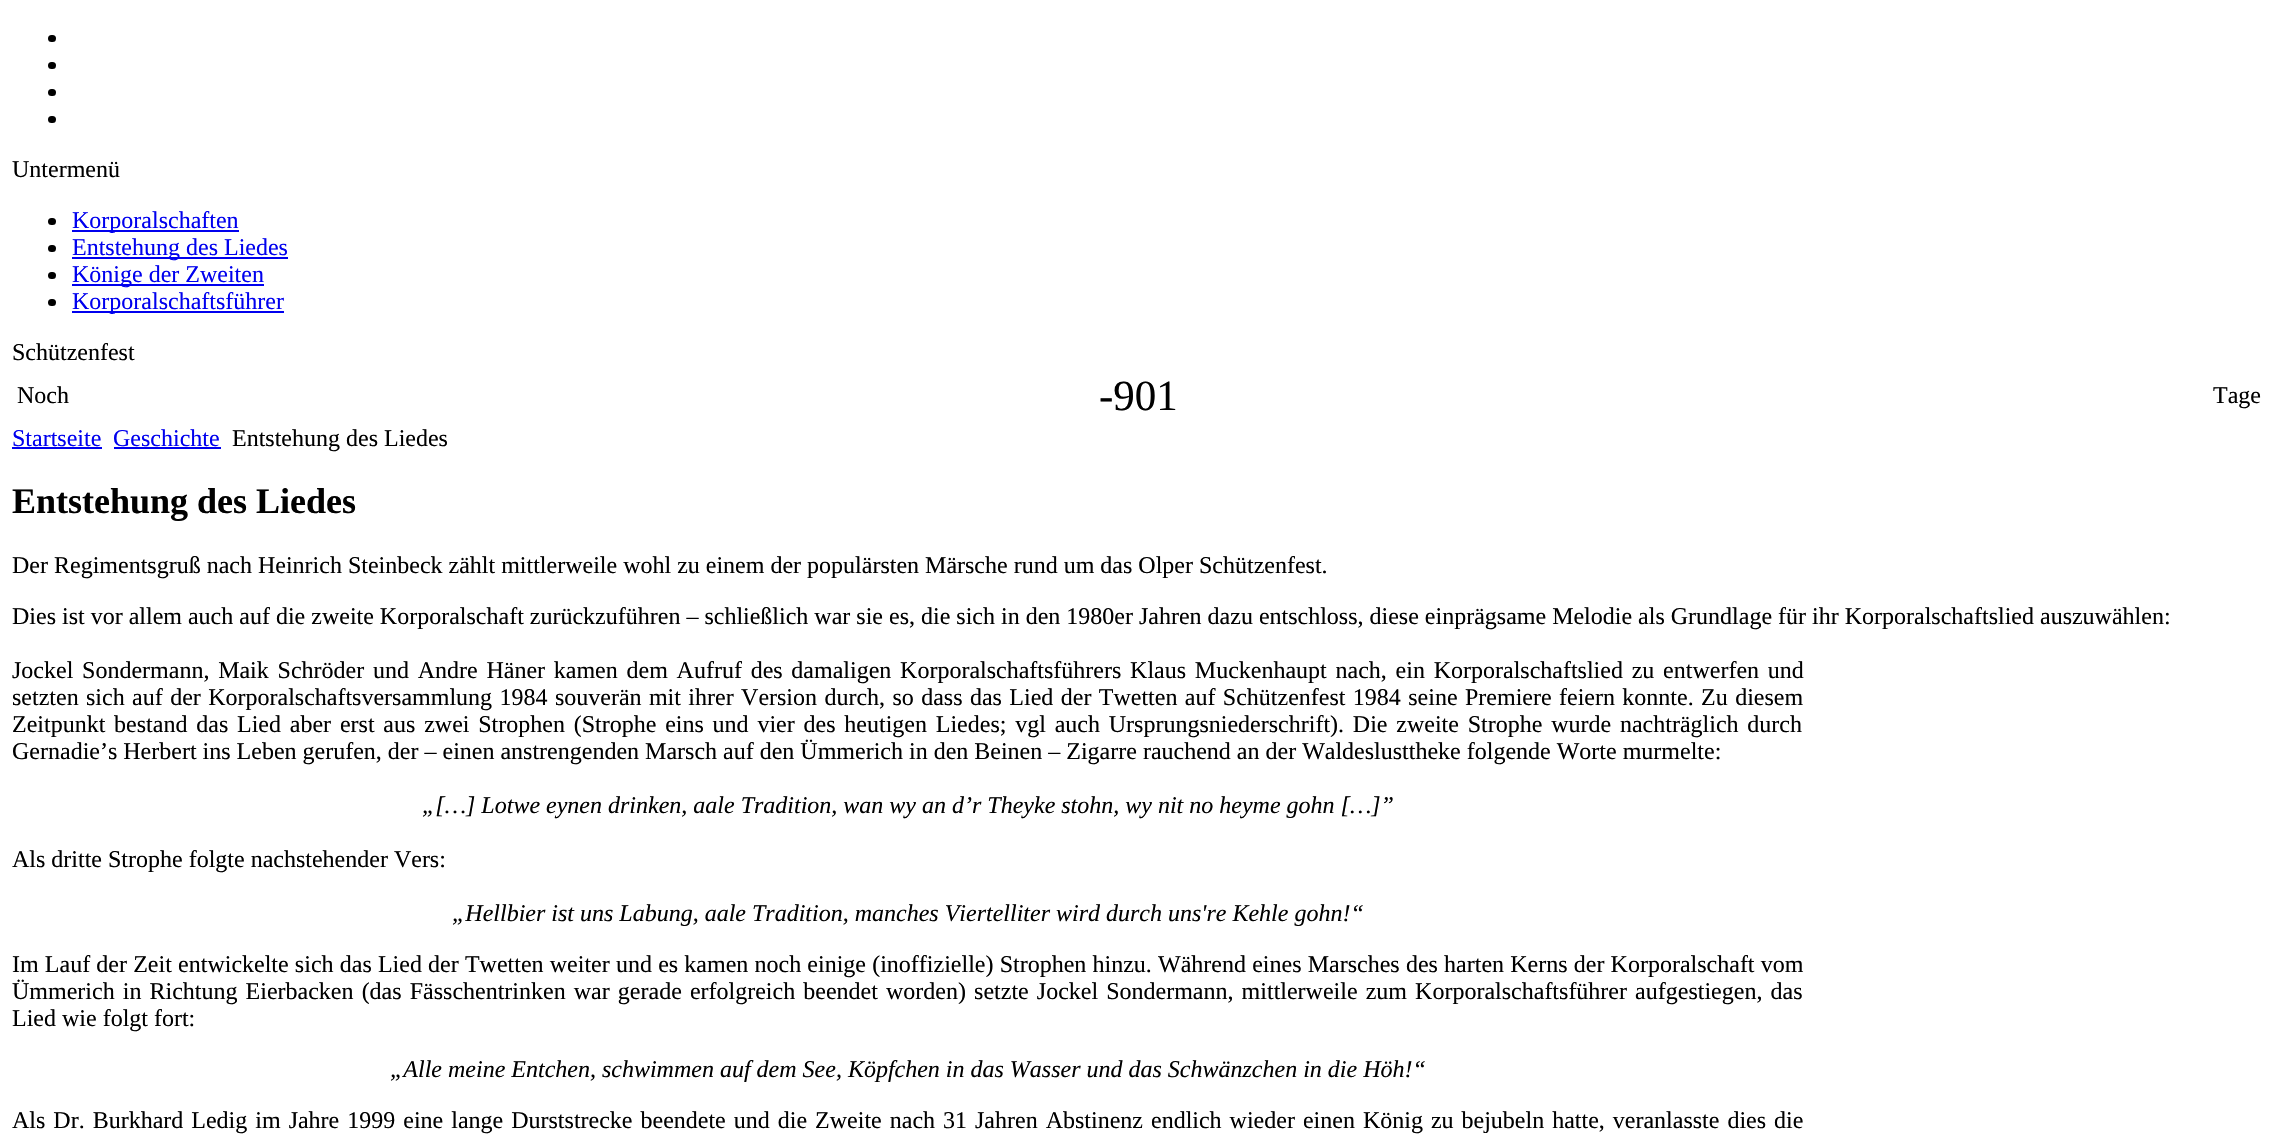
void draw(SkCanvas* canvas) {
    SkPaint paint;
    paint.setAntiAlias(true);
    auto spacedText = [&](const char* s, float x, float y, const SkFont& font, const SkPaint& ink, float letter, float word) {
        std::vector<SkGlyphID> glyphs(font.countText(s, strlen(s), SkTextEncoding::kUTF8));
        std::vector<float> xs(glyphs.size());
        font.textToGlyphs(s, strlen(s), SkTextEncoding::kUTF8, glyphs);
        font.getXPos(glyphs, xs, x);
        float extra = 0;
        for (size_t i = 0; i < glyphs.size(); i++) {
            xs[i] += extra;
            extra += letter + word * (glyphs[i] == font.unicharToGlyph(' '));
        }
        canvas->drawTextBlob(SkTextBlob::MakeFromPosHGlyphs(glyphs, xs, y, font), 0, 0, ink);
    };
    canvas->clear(0xFFFFFFFF);
    paint.setColor(0xFF000000);
    canvas->drawRoundRect(SkRect::MakeXYWH(48, 35, 8, 7), 3.5f, 3.5f, paint);
    canvas->drawRoundRect(SkRect::MakeXYWH(48, 62, 8, 7), 3.5f, 3.5f, paint);
    canvas->drawRoundRect(SkRect::MakeXYWH(48, 89, 8, 7), 3.5f, 3.5f, paint);
    canvas->drawRoundRect(SkRect::MakeXYWH(48, 116, 8, 7), 3.5f, 3.5f, paint);
    SkFont font1(fontMgr->matchFamilyStyle("Liberation Serif", SkFontStyle::Normal()), 24);
    font1.setSubpixel(true);
    canvas->drawString("Untermenü", 12, 177, font1, paint);
    canvas->drawRoundRect(SkRect::MakeXYWH(48, 218, 8, 7), 3.5f, 3.5f, paint);
    paint.setColor(0xFF0000EE);
    canvas->drawRect(SkRect::MakeXYWH(72, 230, 167, 2), paint);
    canvas->drawString("Korporalschaften", 72, 228, font1, paint);
    paint.setColor(0xFF000000);
    canvas->drawRoundRect(SkRect::MakeXYWH(48, 245, 8, 7), 3.5f, 3.5f, paint);
    paint.setColor(0xFF0000EE);
    canvas->drawRect(SkRect::MakeXYWH(72, 257, 216, 2), paint);
    canvas->drawString("Entstehung des Liedes", 72, 255, font1, paint);
    paint.setColor(0xFF000000);
    canvas->drawRoundRect(SkRect::MakeXYWH(48, 272, 8, 7), 3.5f, 3.5f, paint);
    paint.setColor(0xFF0000EE);
    canvas->drawRect(SkRect::MakeXYWH(72, 284, 192, 2), paint);
    canvas->drawString("Könige der Zweiten", 72, 282, font1, paint);
    paint.setColor(0xFF000000);
    canvas->drawRoundRect(SkRect::MakeXYWH(48, 299, 8, 7), 3.5f, 3.5f, paint);
    paint.setColor(0xFF0000EE);
    canvas->drawRect(SkRect::MakeXYWH(72, 311, 212, 2), paint);
    canvas->drawString("Korporalschaftsführer", 72, 309, font1, paint);
    paint.setColor(0xFF000000);
    canvas->drawString("Schützenfest", 12, 360, font1, paint);
    canvas->drawString("Noch", 17, 403, font1, paint);
    SkFont font2(fontMgr->matchFamilyStyle("Liberation Serif", SkFontStyle::Normal()), 43);
    font2.setSubpixel(true);
    canvas->drawString("-901", 1099, 410, font2, paint);
    canvas->drawString("Tage", 2213, 403, font1, paint);
    paint.setColor(0xFF0000EE);
    canvas->drawString("Startseite", 12, 446, font1, paint);
    canvas->drawRect(SkRect::MakeXYWH(12, 447, 90, 2), paint);
    canvas->drawString("Geschichte", 113, 446, font1, paint);
    canvas->drawRect(SkRect::MakeXYWH(114, 447, 107, 2), paint);
    paint.setColor(0xFF000000);
    canvas->drawString("Entstehung des Liedes", 232, 446, font1, paint);
    SkFont font3(fontMgr->matchFamilyStyle("Liberation Serif", SkFontStyle::Bold()), 36);
    font3.setSubpixel(true);
    canvas->drawString("Entstehung des Liedes", 12, 513, font3, paint);
    canvas->drawString("Der Regimentsgruß nach Heinrich Steinbeck zählt mittlerweile wohl zu einem der populärsten Märsche rund um das Olper Schützenfest.", 12, 573, font1, paint);
    canvas->drawString("Dies ist vor allem auch auf die zweite Korporalschaft zurückzuführen – schließlich war sie es, die sich in den 1980er Jahren dazu entschloss, diese einprägsame Melodie als Grundlage für ihr Korporalschaftslied auszuwählen:", 12, 624, font1, paint);
    spacedText("Jockel Sondermann, Maik Schröder und Andre Häner kamen dem Aufruf des damaligen Korporalschaftsführers Klaus Muckenhaupt nach, ein Korporalschaftslied zu entwerfen und", 12, 678, font1, paint, 0, 2.75f);
    spacedText("setzten sich auf der Korporalschaftsversammlung 1984 souverän mit ihrer Version durch, so dass das Lied der Twetten auf Schützenfest 1984 seine Premiere feiern konnte. Zu diesem", 12, 705, font1, paint, 0, 1.4f);
    spacedText("Zeitpunkt bestand das Lied aber erst aus zwei Strophen (Strophe eins und vier des heutigen Liedes; vgl auch Ursprungsniederschrift). Die zweite Strophe wurde nachträglich durch", 12, 732, font1, paint, 0, 2.8f);
    canvas->drawString("Gernadie’s Herbert ins Leben gerufen, der – einen anstrengenden Marsch auf den Ümmerich in den Beinen – Zigarre rauchend an der Waldeslusttheke folgende Worte murmelte:", 12, 759, font1, paint);
    SkFont font4(fontMgr->matchFamilyStyle("Liberation Serif", SkFontStyle::Italic()), 24);
    font4.setSubpixel(true);
    canvas->drawString("„[…] Lotwe eynen drinken, aale Tradition, wan wy an d’r Theyke stohn, wy nit no heyme gohn […]”", 422, 813, font4, paint);
    canvas->drawString("Als dritte Strophe folgte nachstehender Vers:", 12, 867, font1, paint);
    canvas->drawString("„Hellbier ist uns Labung, aale Tradition, manches Viertelliter wird durch uns're Kehle gohn!“", 452, 921, font4, paint);
    spacedText("Im Lauf der Zeit entwickelte sich das Lied der Twetten weiter und es kamen noch einige (inoffizielle) Strophen hinzu. Während eines Marsches des harten Kerns der Korporalschaft vom", 12, 972, font1, paint, 0, 0.2f);
    spacedText("Ümmerich in Richtung Eierbacken (das Fässchentrinken war gerade erfolgreich beendet worden) setzte Jockel Sondermann, mittlerweile zum Korporalschaftsführer aufgestiegen, das", 12, 999, font1, paint, 0, 2.1f);
    canvas->drawString("Lied wie folgt fort:", 12, 1026, font1, paint);
    canvas->drawString("„Alle meine Entchen, schwimmen auf dem See, Köpfchen in das Wasser und das Schwänzchen in die Höh!“", 390, 1077, font4, paint);
    spacedText("Als Dr. Burkhard Ledig im Jahre 1999 eine lange Durststrecke beendete und die Zweite nach 31 Jahren Abstinenz endlich wieder einen König zu bejubeln hatte, veranlasste dies die", 12, 1128, font1, paint, 0, 2);
}
